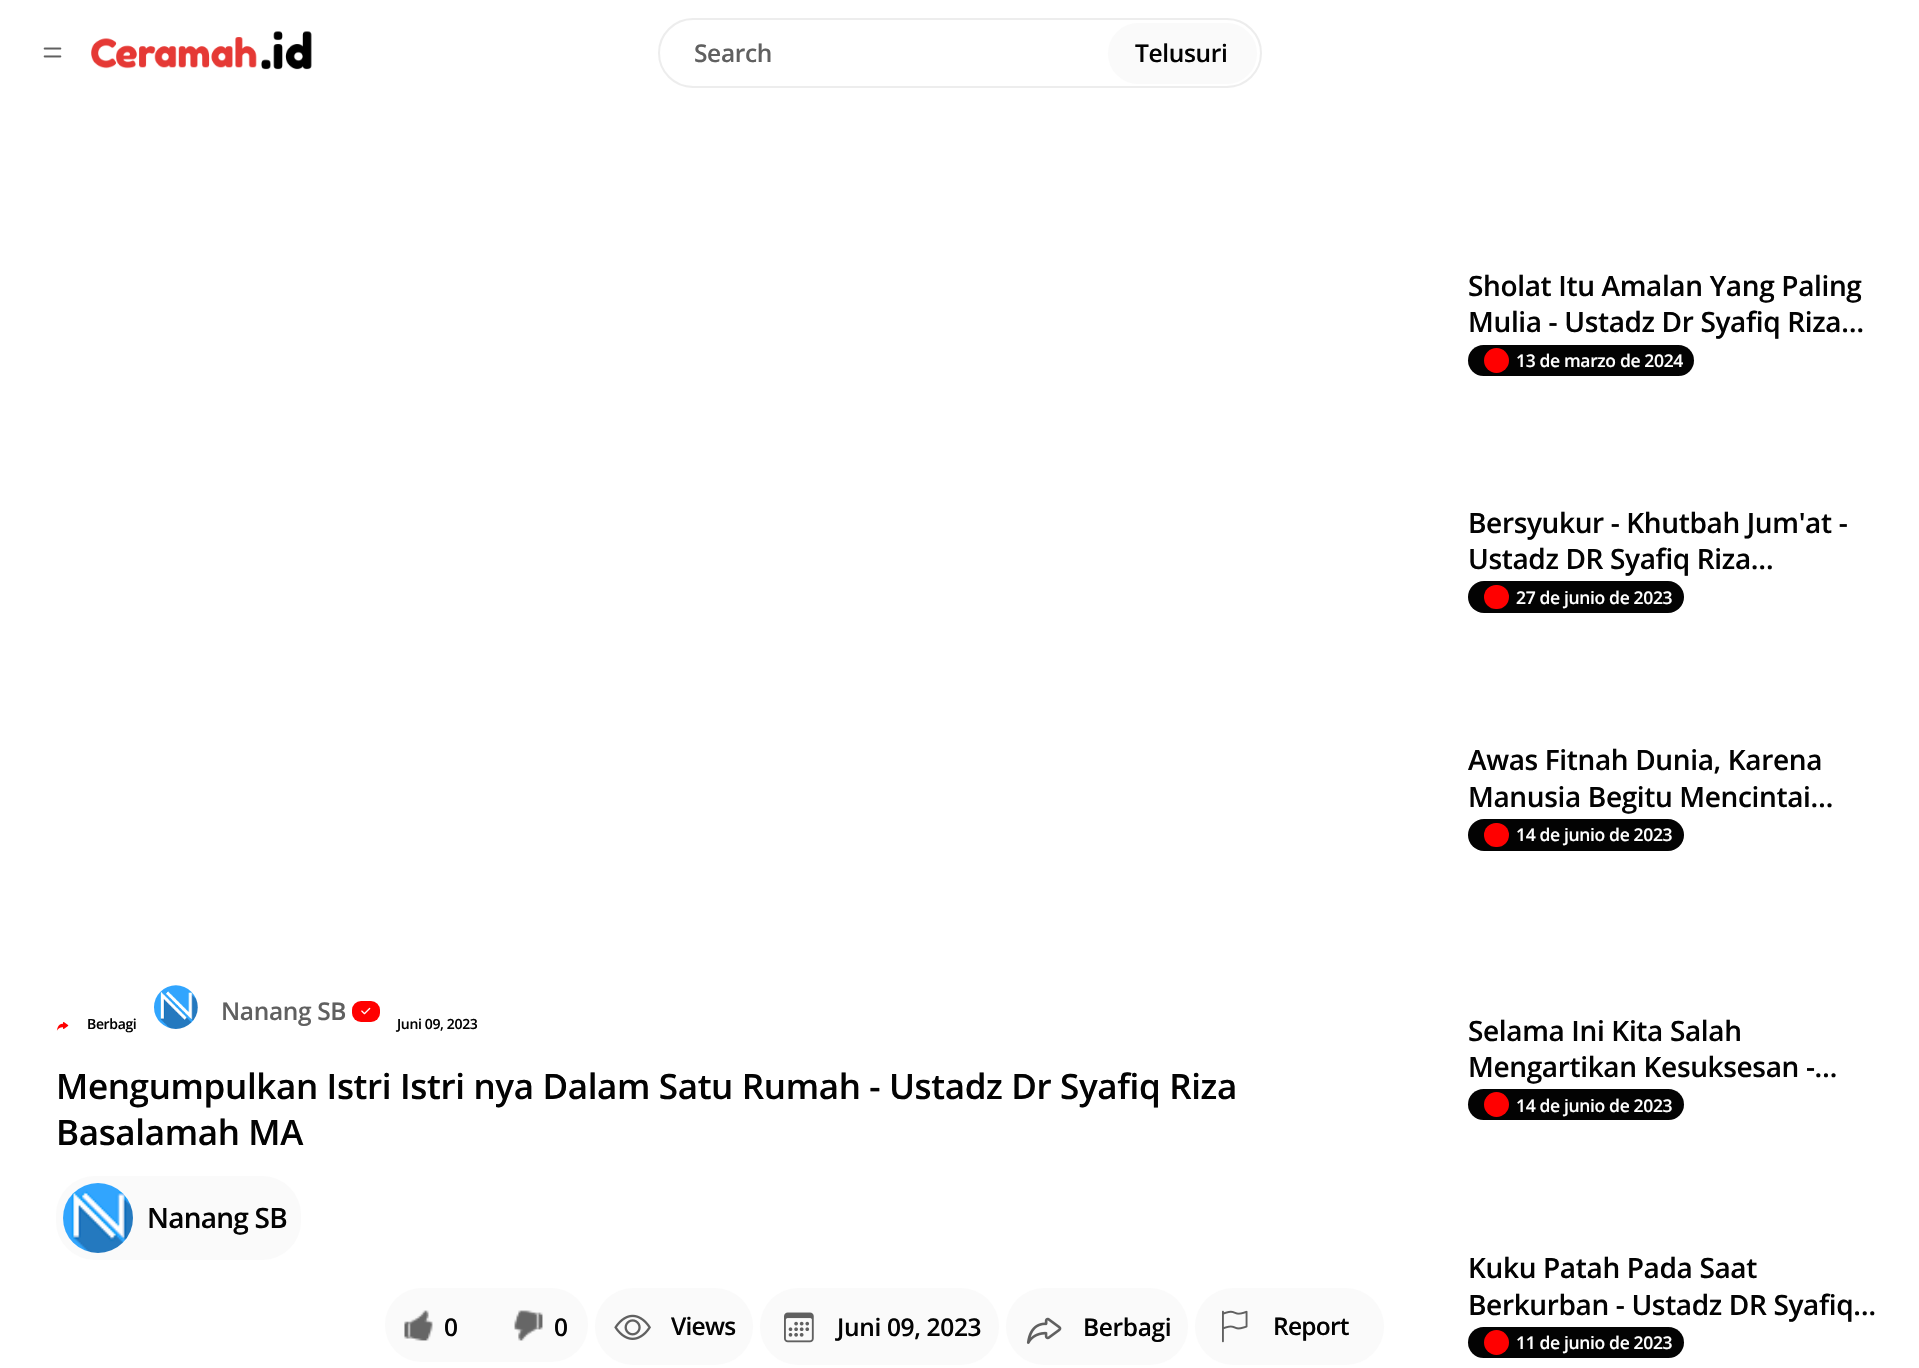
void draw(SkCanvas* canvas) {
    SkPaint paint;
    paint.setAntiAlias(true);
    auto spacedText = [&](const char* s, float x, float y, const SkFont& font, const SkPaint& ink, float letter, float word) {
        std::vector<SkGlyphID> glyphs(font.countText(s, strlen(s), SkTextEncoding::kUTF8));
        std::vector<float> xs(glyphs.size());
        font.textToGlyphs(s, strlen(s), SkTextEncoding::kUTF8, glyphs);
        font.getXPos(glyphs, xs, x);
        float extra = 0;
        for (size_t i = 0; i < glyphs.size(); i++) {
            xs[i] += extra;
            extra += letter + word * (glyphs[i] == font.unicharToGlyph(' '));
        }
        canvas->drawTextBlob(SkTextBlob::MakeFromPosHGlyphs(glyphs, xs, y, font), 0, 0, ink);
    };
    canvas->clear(0xFFFFFFFF);
    canvas->drawImageRect(SkImages::DeferredFromEncodedData(SkData::MakeFromFileName("img1.png")), SkRect::MakeXYWH(43, 47, 19, 11), SkSamplingOptions());
    canvas->drawImageRect(SkImages::DeferredFromEncodedData(SkData::MakeFromFileName("img2.png")), SkRect::MakeXYWH(91, 31, 221, 39), SkSamplingOptions());
    paint.setStyle(SkPaint::kStroke_Style);
    paint.setStrokeWidth(2);
    paint.setColor(0xFFEDEDED);
    canvas->drawRoundRect(SkRect::MakeXYWH(659, 19, 602, 68), 34, 34, paint);
    SkFont font1(fontMgr->matchFamilyStyle("Open Sans", SkFontStyle(600, SkFontStyle::kNormal_Width, SkFontStyle::kUpright_Slant)), 24.5f);
    font1.setSubpixel(true);
    paint.setStyle(SkPaint::kFill_Style);
    paint.setColor(0xFF606060);
    spacedText("Search", 694, 62, font1, paint, -0.35f, 0);
    paint.setColor(0xFFFAFAFA);
    canvas->drawRoundRect(SkRect::MakeXYWH(1108, 23, 149, 61), 30.5f, 30.5f, paint);
    paint.setColor(0xFF030303);
    spacedText("Telusuri", 1135, 62, font1, paint, -0.35f, 0);
    canvas->drawImageRect(SkImages::DeferredFromEncodedData(SkData::MakeFromFileName("img3.png")), SkRect::MakeXYWH(56, 1022, 13, 9), SkSamplingOptions());
    SkFont font2(fontMgr->matchFamilyStyle("Open Sans", SkFontStyle(600, SkFontStyle::kNormal_Width, SkFontStyle::kUpright_Slant)), 14);
    font2.setSubpixel(true);
    spacedText("Berbagi", 87, 1029, font2, paint, -0.35f, 0);
    canvas->drawImageRect(SkImages::DeferredFromEncodedData(SkData::MakeFromFileName("img4.png")), SkRect::MakeXYWH(154, 985, 44, 44), SkSamplingOptions());
    paint.setColor(0xFF606060);
    spacedText("Nanang SB", 221, 1020, font1, paint, -0.35f, 0);
    paint.setColor(0xFFFF0000);
    canvas->drawRoundRect(SkRect::MakeXYWH(352, 1001, 28, 21), 9, 9, paint);
    canvas->drawImageRect(SkImages::DeferredFromEncodedData(SkData::MakeFromFileName("img5.png")), SkRect::MakeXYWH(361, 1007, 10, 8), SkSamplingOptions());
    paint.setColor(0xFF030303);
    spacedText("Juni 09, 2023", 397, 1029, font2, paint, -0.35f, 0);
    SkFont font3(fontMgr->matchFamilyStyle("Open Sans", SkFontStyle(600, SkFontStyle::kNormal_Width, SkFontStyle::kUpright_Slant)), 35);
    font3.setSubpixel(true);
    spacedText("Mengumpulkan Istri Istri nya Dalam Satu Rumah - Ustadz Dr Syafiq Riza", 56, 1099, font3, paint, -0.35f, 0);
    spacedText("Basalamah MA", 56, 1145, font3, paint, -0.35f, 0);
    paint.setColor(0xFFFAFAFA);
    canvas->drawRoundRect(SkRect::MakeXYWH(56, 1176, 245, 84), 39, 39, paint);
    canvas->drawImageRect(SkImages::DeferredFromEncodedData(SkData::MakeFromFileName("img6.png")), SkRect::MakeXYWH(63, 1183, 70, 70), SkSamplingOptions());
    SkFont font4(fontMgr->matchFamilyStyle("Open Sans", SkFontStyle(600, SkFontStyle::kNormal_Width, SkFontStyle::kUpright_Slant)), 28);
    font4.setSubpixel(true);
    paint.setColor(0xFF030303);
    spacedText("Nanang SB", 147, 1228, font4, paint, -0.75f, 0);
    paint.setColor(0xFFFAFAFA);
    canvas->drawRoundRect(SkRect::MakeXYWH(385, 1288, 203, 74), 37, 37, paint);
    canvas->drawImageRect(SkImages::DeferredFromEncodedData(SkData::MakeFromFileName("img7.png")), SkRect::MakeXYWH(404, 1310, 29, 31), SkSamplingOptions());
    paint.setColor(0xFF030303);
    spacedText("0", 444, 1336, font1, paint, -0.35f, 0);
    canvas->drawImageRect(SkImages::DeferredFromEncodedData(SkData::MakeFromFileName("img8.png")), SkRect::MakeXYWH(514, 1310, 29, 31), SkSamplingOptions());
    spacedText("0", 554, 1336, font1, paint, -0.35f, 0);
    paint.setColor(0xFFFAFAFA);
    canvas->drawRoundRect(SkRect::MakeXYWH(595, 1288, 158, 77), 38.5f, 38.5f, paint);
    canvas->drawImageRect(SkImages::DeferredFromEncodedData(SkData::MakeFromFileName("img9.png")), SkRect::MakeXYWH(614, 1314, 37, 26), SkSamplingOptions());
    paint.setColor(0xFF030303);
    spacedText("Views", 671, 1335, font1, paint, -0.75f, 0);
    paint.setColor(0xFFFAFAFA);
    canvas->drawRoundRect(SkRect::MakeXYWH(760, 1288, 239, 77), 38.5f, 38.5f, paint);
    canvas->drawImageRect(SkImages::DeferredFromEncodedData(SkData::MakeFromFileName("img10.png")), SkRect::MakeXYWH(784, 1312, 30, 31), SkSamplingOptions());
    paint.setColor(0xFF030303);
    spacedText("Juni 09, 2023", 837, 1336, font1, paint, -0.35f, 0);
    paint.setColor(0xFFFAFAFA);
    canvas->drawRoundRect(SkRect::MakeXYWH(1006, 1288, 182, 77), 38.5f, 38.5f, paint);
    canvas->drawImageRect(SkImages::DeferredFromEncodedData(SkData::MakeFromFileName("img11.png")), SkRect::MakeXYWH(1026, 1317, 36, 27), SkSamplingOptions());
    paint.setColor(0xFF030303);
    spacedText("Berbagi", 1083, 1336, font1, paint, -0.35f, 0);
    paint.setColor(0xFFFAFAFA);
    canvas->drawRoundRect(SkRect::MakeXYWH(1195, 1288, 189, 77), 38.5f, 38.5f, paint);
    canvas->drawImageRect(SkImages::DeferredFromEncodedData(SkData::MakeFromFileName("img12.png")), SkRect::MakeXYWH(1222, 1310, 26, 33), SkSamplingOptions());
    paint.setColor(0xFF030303);
    spacedText("Report", 1273, 1335, font1, paint, -0.75f, 0);
    spacedText("Sholat Itu Amalan Yang Paling", 1468, 296, font4, paint, -0.35f, 0);
    spacedText("Mulia - Ustadz Dr Syafiq Riza…", 1468, 332, font4, paint, -0.35f, 0);
    canvas->drawRoundRect(SkRect::MakeXYWH(1468, 345, 226, 31), 15.5f, 15.5f, paint);
    paint.setColor(0xFFFF0000);
    canvas->drawCircle(1496.5f, 360.5f, 12.5f, paint);
    SkFont font5(fontMgr->matchFamilyStyle("Open Sans", SkFontStyle(600, SkFontStyle::kNormal_Width, SkFontStyle::kUpright_Slant)), 17.5f);
    font5.setSubpixel(true);
    paint.setColor(0xFFFFFFFF);
    spacedText("13 de marzo de 2024", 1516, 367, font5, paint, -0.35f, 0);
    paint.setColor(0xFF030303);
    spacedText("Bersyukur - Khutbah Jum'at -", 1468, 533, font4, paint, -0.35f, 0);
    spacedText("Ustadz DR Syafiq Riza…", 1468, 569, font4, paint, -0.35f, 0);
    canvas->drawRoundRect(SkRect::MakeXYWH(1468, 581, 216, 32), 16, 16, paint);
    paint.setColor(0xFFFF0000);
    canvas->drawRoundRect(SkRect::MakeXYWH(1484, 585, 25, 24), 12, 12, paint);
    paint.setColor(0xFFFFFFFF);
    spacedText("27 de junio de 2023", 1516, 604, font5, paint, -0.35f, 0);
    paint.setColor(0xFF030303);
    spacedText("Awas Fitnah Dunia, Karena", 1468, 770, font4, paint, -0.35f, 0);
    spacedText("Manusia Begitu Mencintai…", 1468, 807, font4, paint, -0.35f, 0);
    canvas->drawRoundRect(SkRect::MakeXYWH(1468, 819, 216, 32), 16, 16, paint);
    paint.setColor(0xFFFF0000);
    canvas->drawRoundRect(SkRect::MakeXYWH(1484, 823, 25, 24), 12, 12, paint);
    paint.setColor(0xFFFFFFFF);
    spacedText("14 de junio de 2023", 1516, 841, font5, paint, -0.35f, 0);
    paint.setColor(0xFF030303);
    spacedText("Selama Ini Kita Salah", 1468, 1041, font4, paint, -0.35f, 0);
    spacedText("Mengartikan Kesuksesan -…", 1468, 1077, font4, paint, -0.35f, 0);
    canvas->drawRoundRect(SkRect::MakeXYWH(1468, 1089, 216, 31), 15.5f, 15.5f, paint);
    paint.setColor(0xFFFF0000);
    canvas->drawCircle(1496.5f, 1104.5f, 12.5f, paint);
    paint.setColor(0xFFFFFFFF);
    spacedText("14 de junio de 2023", 1516, 1112, font5, paint, -0.35f, 0);
    paint.setColor(0xFF030303);
    spacedText("Kuku Patah Pada Saat", 1468, 1278, font4, paint, -0.35f, 0);
    spacedText("Berkurban - Ustadz DR Syafiq…", 1468, 1315, font4, paint, -0.35f, 0);
    canvas->drawRoundRect(SkRect::MakeXYWH(1468, 1327, 216, 31), 15.5f, 15.5f, paint);
    paint.setColor(0xFFFF0000);
    canvas->drawCircle(1496.5f, 1342.5f, 12.5f, paint);
    paint.setColor(0xFFFFFFFF);
    spacedText("11 de junio de 2023", 1516, 1349, font5, paint, -0.35f, 0);
}
